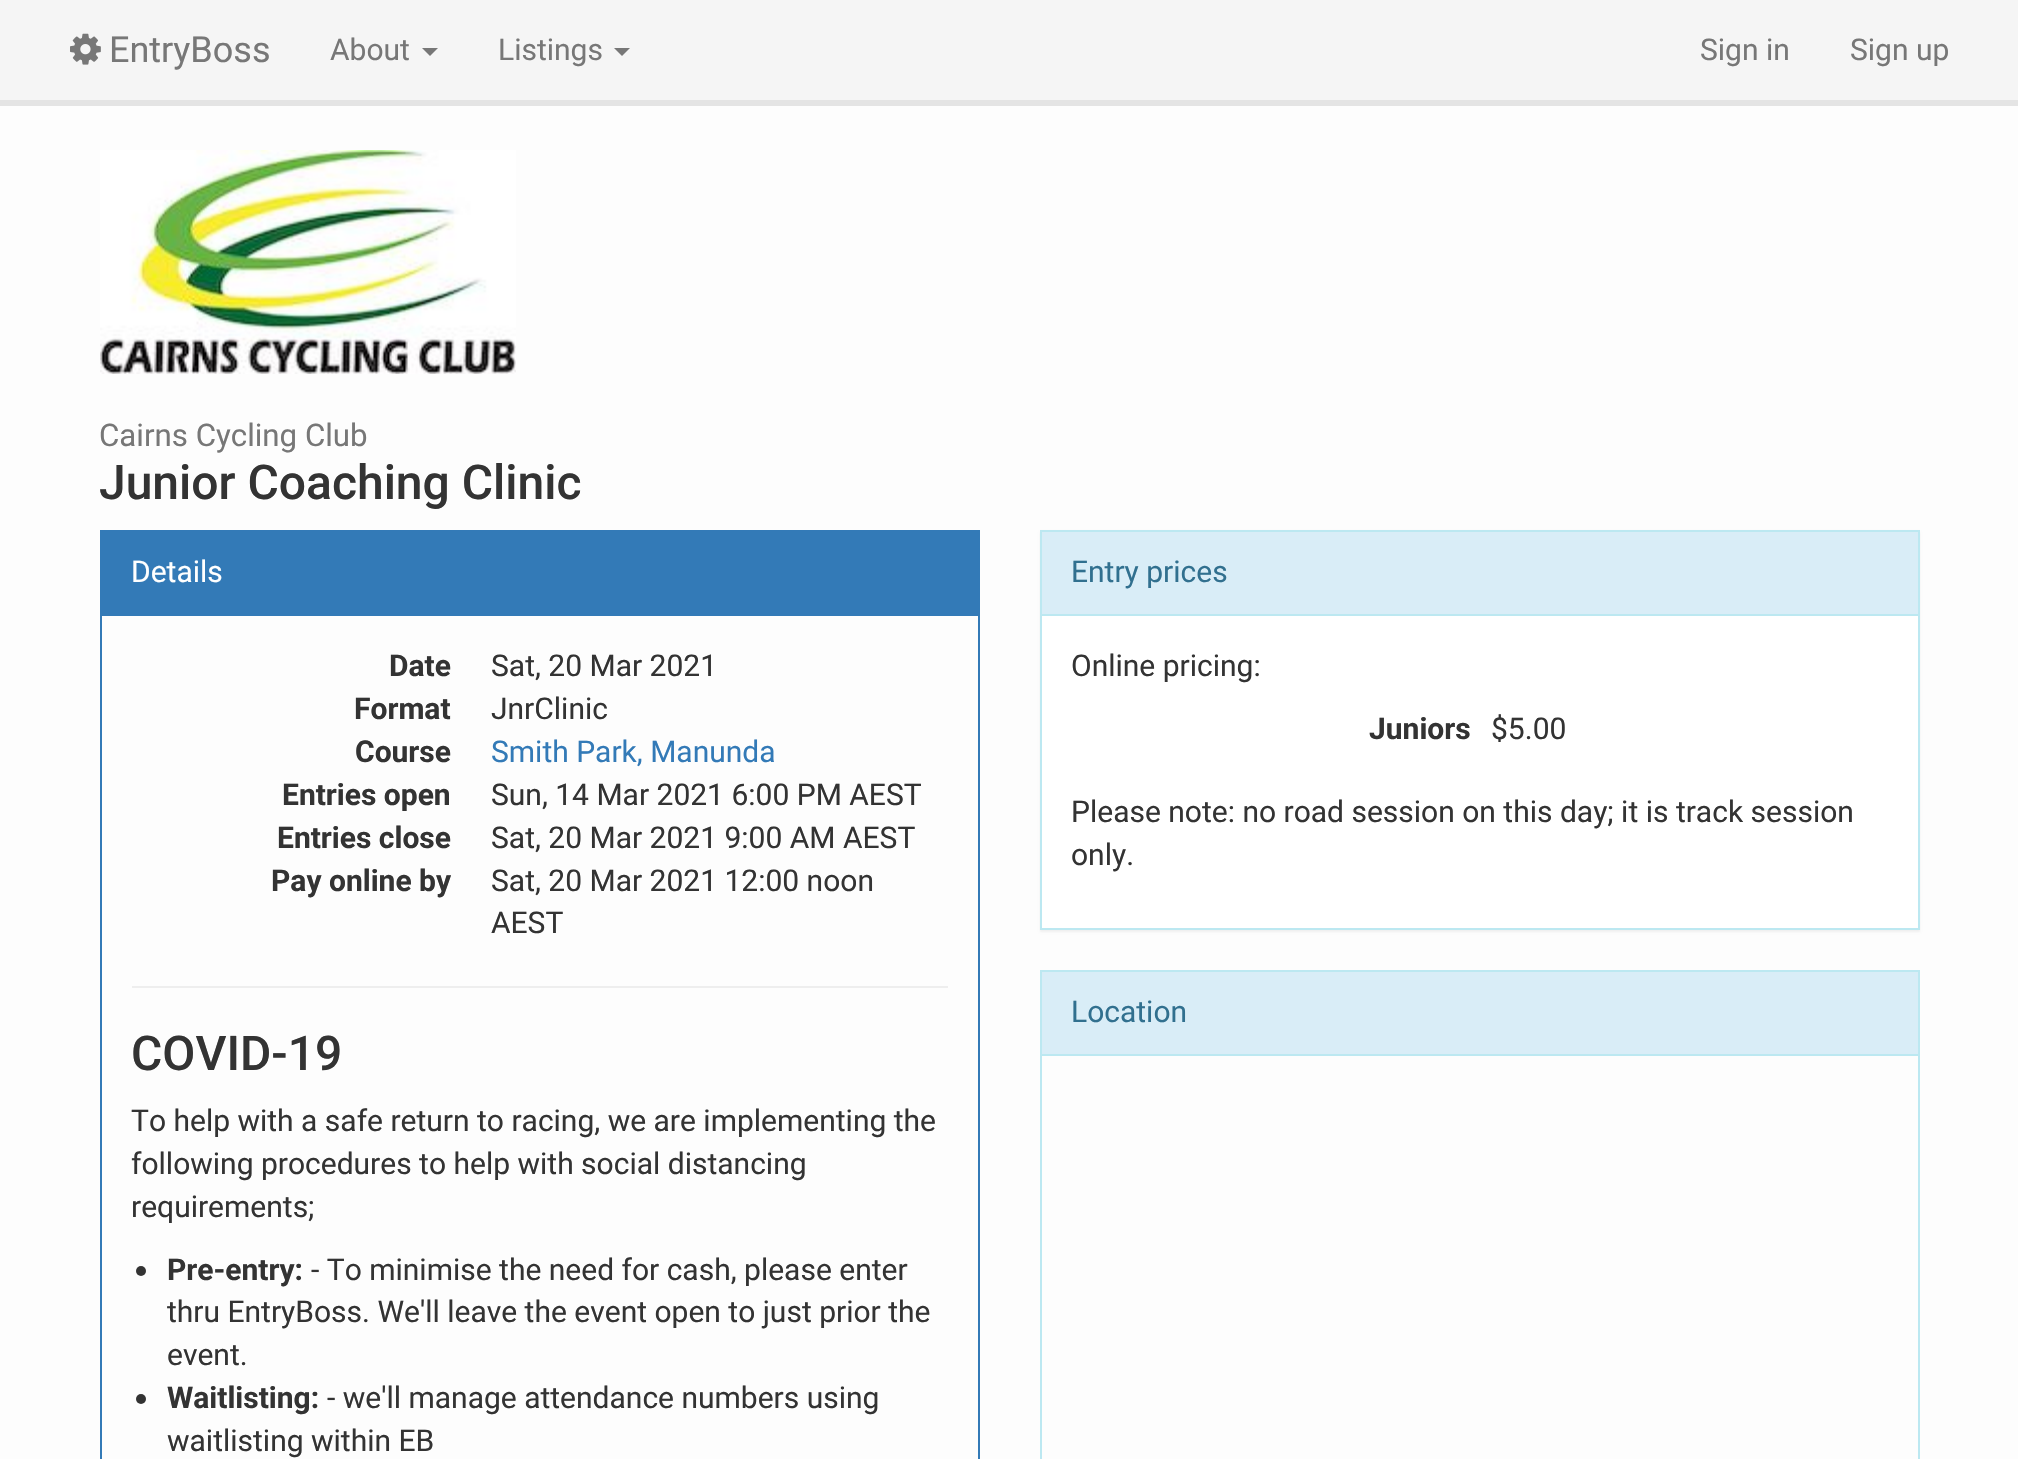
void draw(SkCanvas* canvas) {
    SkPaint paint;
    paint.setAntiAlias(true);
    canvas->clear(0xFFFDFDFD);
    paint.setColor(0xFFF5F5F5);
    canvas->drawRect(SkRect::MakeXYWH(0, 0, 2018, 100), paint);
    paint.setColor(0xFFE4E4E4);
    canvas->drawRect(SkRect::MakeXYWH(0, 100, 2018, 6), paint);
    canvas->drawImageRect(SkImages::DeferredFromEncodedData(SkData::MakeFromFileName("img1.png")), SkRect::MakeXYWH(70, 33, 31, 32), SkSamplingOptions());
    SkFont font1(fontMgr->matchFamilyStyle("Roboto", SkFontStyle::Normal()), 36);
    font1.setSubpixel(true);
    paint.setColor(0xFF777777);
    canvas->drawString("EntryBoss", 109, 62, font1, paint);
    SkFont font2(fontMgr->matchFamilyStyle("Roboto", SkFontStyle::Normal()), 30);
    font2.setSubpixel(true);
    canvas->drawString("About", 330, 60, font2, paint);
    canvas->drawPath(SkPathBuilder().moveTo(422, 48).lineTo(438, 48).lineTo(430, 56).close().detach(), paint);
    canvas->drawString("Listings", 498, 60, font2, paint);
    canvas->drawPath(SkPathBuilder().moveTo(614, 48).lineTo(630, 48).lineTo(622, 56).close().detach(), paint);
    canvas->drawString("Sign in", 1700, 60, font2, paint);
    canvas->drawString("Sign up", 1850, 60, font2, paint);
    canvas->drawImageRect(SkImages::DeferredFromEncodedData(SkData::MakeFromFileName("img2.png")), SkRect::MakeXYWH(100, 150, 416, 224), SkSamplingOptions());
    SkFont font3(fontMgr->matchFamilyStyle("Roboto", SkFontStyle::Normal()), 31.25f);
    font3.setSubpixel(true);
    canvas->drawString("Cairns Cycling Club", 99, 446, font3, paint);
    SkFont font4(fontMgr->matchFamilyStyle("Roboto", SkFontStyle(500, SkFontStyle::kNormal_Width, SkFontStyle::kUpright_Slant)), 48);
    font4.setSubpixel(true);
    paint.setColor(0xFF333333);
    canvas->drawString("Junior Coaching Clinic", 99, 499, font4, paint);
    paint.setStyle(SkPaint::kStroke_Style);
    paint.setStrokeWidth(2);
    paint.setColor(0xFF337AB7);
    canvas->drawRect(SkRect::MakeXYWH(101, 531, 878, 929), paint);
    paint.setStyle(SkPaint::kFill_Style);
    canvas->drawRect(SkRect::MakeXYWH(102, 532, 876, 84), paint);
    paint.setColor(0xFFFFFFFF);
    canvas->drawString("Details", 131, 582, font2, paint);
    SkFont font5(fontMgr->matchFamilyStyle("Roboto", SkFontStyle::Bold()), 30);
    font5.setSubpixel(true);
    paint.setColor(0xFF333333);
    canvas->drawString("Date", 389, 676, font5, paint);
    canvas->drawString("Sat, 20 Mar 2021", 491, 676, font2, paint);
    canvas->drawString("Format", 354, 719, font5, paint);
    canvas->drawString("JnrClinic", 491, 719, font2, paint);
    canvas->drawString("Course", 355, 762, font5, paint);
    paint.setColor(0xFF337AB7);
    canvas->drawString("Smith Park, Manunda", 491, 762, font2, paint);
    paint.setColor(0xFF333333);
    canvas->drawString("Entries open", 282, 805, font5, paint);
    canvas->drawString("Sun, 14 Mar 2021 6:00 PM AEST", 491, 805, font2, paint);
    canvas->drawString("Entries close", 277, 848, font5, paint);
    canvas->drawString("Sat, 20 Mar 2021 9:00 AM AEST", 491, 848, font2, paint);
    canvas->drawString("Pay online by", 271, 891, font5, paint);
    canvas->drawString("Sat, 20 Mar 2021 12:00 noon", 491, 891, font2, paint);
    canvas->drawString("AEST", 491, 933, font2, paint);
    paint.setColor(0xFFEEEEEE);
    canvas->drawRect(SkRect::MakeXYWH(132, 986, 816, 2), paint);
    paint.setColor(0xFF333333);
    canvas->drawString("COVID-19", 131, 1070, font4, paint);
    canvas->drawString("To help with a safe return to racing, we are implementing the", 131, 1131, font2, paint);
    canvas->drawString("following procedures to help with social distancing", 131, 1174, font2, paint);
    canvas->drawString("requirements;", 131, 1217, font2, paint);
    canvas->drawCircle(141, 1271, 5, paint);
    canvas->drawString("Pre-entry:", 167, 1280, font5, paint);
    canvas->drawString("- To minimise the need for cash, please enter", 311, 1280, font2, paint);
    canvas->drawString("thru EntryBoss. We'll leave the event open to just prior the", 167, 1322, font2, paint);
    canvas->drawString("event.", 167, 1365, font2, paint);
    canvas->drawCircle(141, 1399, 5, paint);
    canvas->drawString("Waitlisting:", 167, 1408, font5, paint);
    canvas->drawString("- we'll manage attendance numbers using", 327, 1408, font2, paint);
    canvas->drawString("waitlisting within EB", 167, 1451, font2, paint);
    paint.setColor(0x0D000000);
    paint.setMaskFilter(SkMaskFilter::MakeBlur(kNormal_SkBlurStyle, 1));
    canvas->drawRect(SkRect::MakeXYWH(1040, 532, 880, 400), paint);
    paint.setMaskFilter(nullptr);
    paint.setColor(0xFFFFFFFF);
    canvas->drawRect(SkRect::MakeXYWH(1042, 616, 876, 312), paint);
    paint.setStyle(SkPaint::kStroke_Style);
    paint.setColor(0xFFBCE8F1);
    canvas->drawRect(SkRect::MakeXYWH(1041, 531, 878, 398), paint);
    paint.setStyle(SkPaint::kFill_Style);
    paint.setColor(0xFFD9EDF7);
    canvas->drawRect(SkRect::MakeXYWH(1042, 532, 876, 82), paint);
    paint.setColor(0xFFBCE8F1);
    canvas->drawRect(SkRect::MakeXYWH(1042, 614, 876, 2), paint);
    paint.setColor(0xFF31708F);
    canvas->drawString("Entry prices", 1071, 582, font2, paint);
    paint.setColor(0xFF333333);
    canvas->drawString("Online pricing:", 1071, 676, font2, paint);
    canvas->drawString("Juniors", 1369, 739, font5, paint);
    canvas->drawString("$5.00", 1491, 739, font2, paint);
    canvas->drawString("Please note: no road session on this day; it is track session", 1071, 822, font2, paint);
    canvas->drawString("only.", 1071, 865, font2, paint);
    paint.setStyle(SkPaint::kStroke_Style);
    paint.setColor(0xFFBCE8F1);
    canvas->drawRect(SkRect::MakeXYWH(1041, 971, 878, 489), paint);
    paint.setStyle(SkPaint::kFill_Style);
    paint.setColor(0xFFD9EDF7);
    canvas->drawRect(SkRect::MakeXYWH(1042, 972, 876, 82), paint);
    paint.setColor(0xFFBCE8F1);
    canvas->drawRect(SkRect::MakeXYWH(1042, 1054, 876, 2), paint);
    paint.setColor(0xFF31708F);
    canvas->drawString("Location", 1071, 1022, font2, paint);
}
